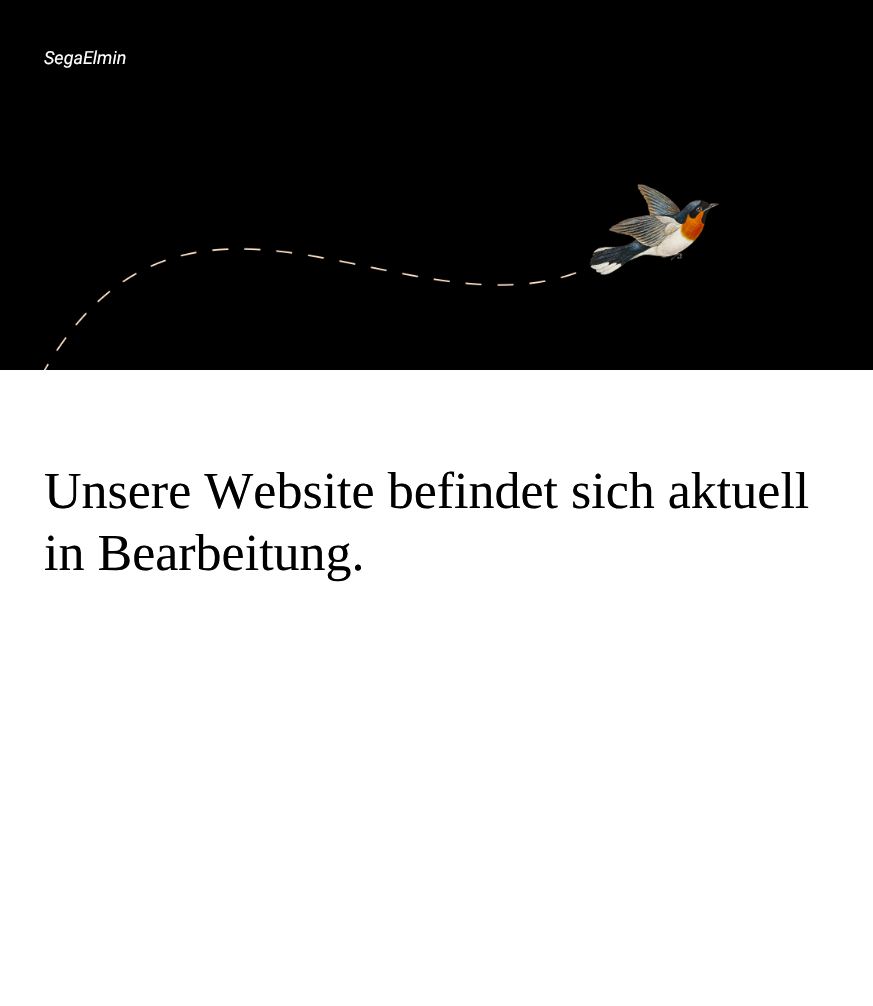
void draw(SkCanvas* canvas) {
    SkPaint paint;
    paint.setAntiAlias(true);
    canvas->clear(0xFFFFFFFF);
    paint.setColor(0xFF000000);
    canvas->drawRect(SkRect::MakeXYWH(0, 0, 873, 370), paint);
    SkFont font1(fontMgr->matchFamilyStyle("Roboto", SkFontStyle::Italic()), 18);
    font1.setSubpixel(true);
    paint.setColor(0xFFFFFFFF);
    canvas->drawString("SegaElmin", 44, 64, font1, paint);
    canvas->drawImageRect(SkImages::DeferredFromEncodedData(SkData::MakeFromFileName("img1.png")), SkRect::MakeXYWH(44, 184, 675, 186), SkSamplingOptions());
    SkFont font2(fontMgr->matchFamilyStyle("Liberation Serif", SkFontStyle::Normal()), 52);
    font2.setSubpixel(true);
    paint.setColor(0xFF000000);
    canvas->drawString("Unsere Website befindet sich aktuell", 44, 508, font2, paint);
    canvas->drawString("in Bearbeitung.", 44, 570, font2, paint);
}
